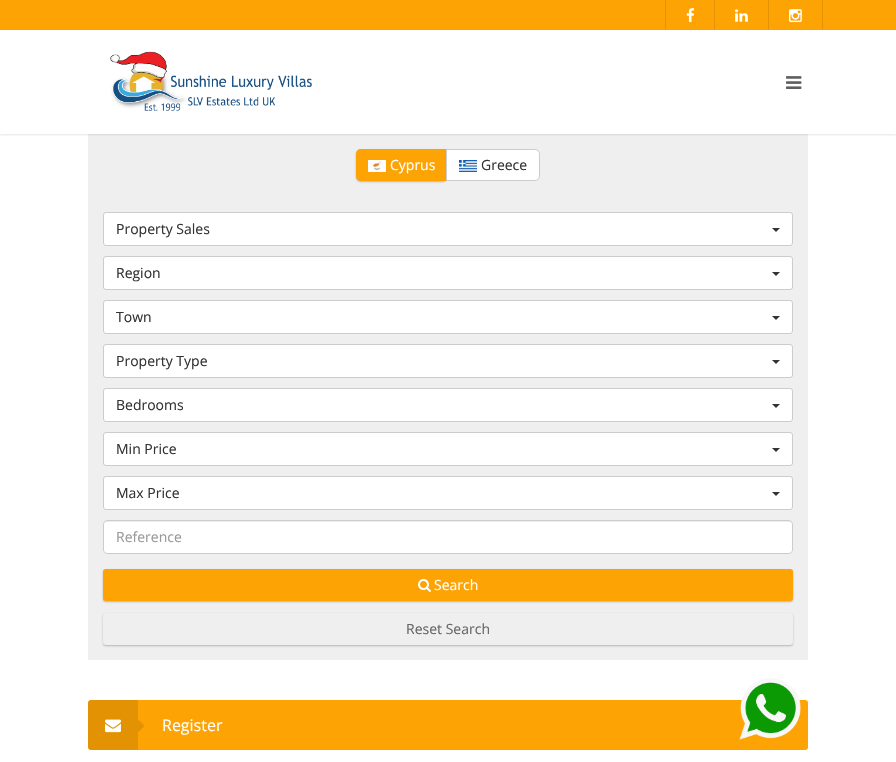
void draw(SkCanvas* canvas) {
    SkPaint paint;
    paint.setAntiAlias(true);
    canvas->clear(0xFFFFFFFF);
    paint.setColor(0xFFFDA304);
    canvas->drawRect(SkRect::MakeXYWH(0, 0, 896, 30), paint);
    paint.setColor(0xFFE49304);
    canvas->drawRect(SkRect::MakeXYWH(714, 0, 1, 30), paint);
    canvas->drawRect(SkRect::MakeXYWH(665, 0, 1, 30), paint);
    canvas->drawImageRect(SkImages::DeferredFromEncodedData(SkData::MakeFromFileName("img1.png")), SkRect::MakeXYWH(686, 8, 9, 15), SkSamplingOptions());
    canvas->drawRect(SkRect::MakeXYWH(768, 0, 1, 30), paint);
    canvas->drawImageRect(SkImages::DeferredFromEncodedData(SkData::MakeFromFileName("img2.png")), SkRect::MakeXYWH(735, 9, 13, 13), SkSamplingOptions());
    canvas->drawRect(SkRect::MakeXYWH(822, 0, 1, 30), paint);
    canvas->drawImageRect(SkImages::DeferredFromEncodedData(SkData::MakeFromFileName("img3.png")), SkRect::MakeXYWH(789, 9, 13, 14), SkSamplingOptions());
    paint.setColor(0xFFEFEFEF);
    canvas->drawRect(SkRect::MakeXYWH(88, 134, 720, 526), paint);
    canvas->save();
    canvas->clipRect(SkRect::MakeXYWH(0, 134, 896, 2));
    paint.setColor(0x1A000000);
    paint.setMaskFilter(SkMaskFilter::MakeBlur(kNormal_SkBlurStyle, 1));
    canvas->drawRect(SkRect::MakeXYWH(0, 31, 896, 104), paint);
    paint.setMaskFilter(nullptr);
    canvas->restore();
    canvas->drawImageRect(SkImages::DeferredFromEncodedData(SkData::MakeFromFileName("img4.png")), SkRect::MakeXYWH(110, 51, 202, 60), SkSamplingOptions());
    canvas->drawImageRect(SkImages::DeferredFromEncodedData(SkData::MakeFromFileName("img5.png")), SkRect::MakeXYWH(786, 76, 16, 13), SkSamplingOptions());
    paint.setColor(0x40000000);
    paint.setMaskFilter(SkMaskFilter::MakeBlur(kNormal_SkBlurStyle, 1));
    canvas->drawRoundRect(SkRect::MakeXYWH(356, 150, 91, 32), 5, 5, paint);
    paint.setMaskFilter(nullptr);
    paint.setColor(0xFFFDA304);
    canvas->drawPath(SkPathBuilder().moveTo(361, 149).lineTo(447, 149).lineTo(447, 181).lineTo(361, 181).cubicTo(358, 181, 356, 179, 356, 176).lineTo(356, 154).cubicTo(356, 151, 358, 149, 361, 149).close().detach(), paint);
    canvas->drawImageRect(SkImages::DeferredFromEncodedData(SkData::MakeFromFileName("img6.png")), SkRect::MakeXYWH(368, 160, 18, 12), SkSamplingOptions());
    SkFont font1(fontMgr->matchFamilyStyle("Open Sans", SkFontStyle::Normal()), 14);
    font1.setSubpixel(true);
    paint.setColor(0xFFFFFFFF);
    canvas->drawString("Cyprus", 390, 170, font1, paint);
    canvas->drawPath(SkPathBuilder().moveTo(446.5f, 149.5f).lineTo(535, 149.5f).cubicTo(537.5f, 149.5f, 539.5f, 151.5f, 539.5f, 154).lineTo(539.5f, 176).cubicTo(539.5f, 178.5f, 537.5f, 180.5f, 535, 180.5f).lineTo(446.5f, 180.5f).close().detach(), paint);
    paint.setStyle(SkPaint::kStroke_Style);
    paint.setStrokeWidth(1);
    paint.setColor(0xFFCCCCCC);
    canvas->drawPath(SkPathBuilder().moveTo(446.5f, 149.5f).lineTo(535, 149.5f).cubicTo(537.5f, 149.5f, 539.5f, 151.5f, 539.5f, 154).lineTo(539.5f, 176).cubicTo(539.5f, 178.5f, 537.5f, 180.5f, 535, 180.5f).lineTo(446.5f, 180.5f).close().detach(), paint);
    canvas->drawImageRect(SkImages::DeferredFromEncodedData(SkData::MakeFromFileName("img7.png")), SkRect::MakeXYWH(459, 160, 18, 12), SkSamplingOptions());
    paint.setStyle(SkPaint::kFill_Style);
    paint.setColor(0xFF333333);
    canvas->drawString("Greece", 481, 170, font1, paint);
    paint.setColor(0xFFFFFFFF);
    canvas->drawRoundRect(SkRect::MakeXYWH(103.5f, 212.5f, 689, 33), 2.5f, 2.5f, paint);
    paint.setStyle(SkPaint::kStroke_Style);
    paint.setColor(0xFFCCCCCC);
    canvas->drawRoundRect(SkRect::MakeXYWH(103.5f, 212.5f, 689, 33), 2.5f, 2.5f, paint);
    paint.setStyle(SkPaint::kFill_Style);
    paint.setColor(0xFF333333);
    canvas->drawString("Property Sales", 116, 234, font1, paint);
    canvas->drawPath(SkPathBuilder().moveTo(772, 228).lineTo(780, 228).lineTo(776, 232).close().detach(), paint);
    paint.setColor(0xFFFFFFFF);
    canvas->drawRoundRect(SkRect::MakeXYWH(103.5f, 256.5f, 689, 33), 2.5f, 2.5f, paint);
    paint.setStyle(SkPaint::kStroke_Style);
    paint.setColor(0xFFCCCCCC);
    canvas->drawRoundRect(SkRect::MakeXYWH(103.5f, 256.5f, 689, 33), 2.5f, 2.5f, paint);
    paint.setStyle(SkPaint::kFill_Style);
    paint.setColor(0xFF333333);
    canvas->drawString("Region", 116, 278, font1, paint);
    canvas->drawPath(SkPathBuilder().moveTo(772, 272).lineTo(780, 272).lineTo(776, 276).close().detach(), paint);
    paint.setColor(0xFFFFFFFF);
    canvas->drawRoundRect(SkRect::MakeXYWH(103.5f, 300.5f, 689, 33), 2.5f, 2.5f, paint);
    paint.setStyle(SkPaint::kStroke_Style);
    paint.setColor(0xFFCCCCCC);
    canvas->drawRoundRect(SkRect::MakeXYWH(103.5f, 300.5f, 689, 33), 2.5f, 2.5f, paint);
    paint.setStyle(SkPaint::kFill_Style);
    paint.setColor(0xFF333333);
    canvas->drawString("Town", 116, 322, font1, paint);
    canvas->drawPath(SkPathBuilder().moveTo(772, 316).lineTo(780, 316).lineTo(776, 320).close().detach(), paint);
    paint.setColor(0xFFFFFFFF);
    canvas->drawRoundRect(SkRect::MakeXYWH(103.5f, 344.5f, 689, 33), 2.5f, 2.5f, paint);
    paint.setStyle(SkPaint::kStroke_Style);
    paint.setColor(0xFFCCCCCC);
    canvas->drawRoundRect(SkRect::MakeXYWH(103.5f, 344.5f, 689, 33), 2.5f, 2.5f, paint);
    paint.setStyle(SkPaint::kFill_Style);
    paint.setColor(0xFF333333);
    canvas->drawString("Property Type", 116, 366, font1, paint);
    canvas->drawPath(SkPathBuilder().moveTo(772, 360).lineTo(780, 360).lineTo(776, 364).close().detach(), paint);
    paint.setColor(0xFFFFFFFF);
    canvas->drawRoundRect(SkRect::MakeXYWH(103.5f, 388.5f, 689, 33), 2.5f, 2.5f, paint);
    paint.setStyle(SkPaint::kStroke_Style);
    paint.setColor(0xFFCCCCCC);
    canvas->drawRoundRect(SkRect::MakeXYWH(103.5f, 388.5f, 689, 33), 2.5f, 2.5f, paint);
    paint.setStyle(SkPaint::kFill_Style);
    paint.setColor(0xFF333333);
    canvas->drawString("Bedrooms", 116, 410, font1, paint);
    canvas->drawPath(SkPathBuilder().moveTo(772, 404).lineTo(780, 404).lineTo(776, 408).close().detach(), paint);
    paint.setColor(0xFFFFFFFF);
    canvas->drawRoundRect(SkRect::MakeXYWH(103.5f, 432.5f, 689, 33), 2.5f, 2.5f, paint);
    paint.setStyle(SkPaint::kStroke_Style);
    paint.setColor(0xFFCCCCCC);
    canvas->drawRoundRect(SkRect::MakeXYWH(103.5f, 432.5f, 689, 33), 2.5f, 2.5f, paint);
    paint.setStyle(SkPaint::kFill_Style);
    paint.setColor(0xFF333333);
    canvas->drawString("Min Price", 116, 454, font1, paint);
    canvas->drawPath(SkPathBuilder().moveTo(772, 448).lineTo(780, 448).lineTo(776, 452).close().detach(), paint);
    paint.setColor(0xFFFFFFFF);
    canvas->drawRoundRect(SkRect::MakeXYWH(103.5f, 476.5f, 689, 33), 2.5f, 2.5f, paint);
    paint.setStyle(SkPaint::kStroke_Style);
    paint.setColor(0xFFCCCCCC);
    canvas->drawRoundRect(SkRect::MakeXYWH(103.5f, 476.5f, 689, 33), 2.5f, 2.5f, paint);
    paint.setStyle(SkPaint::kFill_Style);
    paint.setColor(0xFF333333);
    canvas->drawString("Max Price", 116, 498, font1, paint);
    canvas->drawPath(SkPathBuilder().moveTo(772, 492).lineTo(780, 492).lineTo(776, 496).close().detach(), paint);
    paint.setColor(0xFFFFFFFF);
    canvas->drawRoundRect(SkRect::MakeXYWH(103, 520, 690, 34), 4, 4, paint);
    paint.setColor(0xFFECECEC);
    canvas->drawPath(SkPathBuilder().moveTo(107, 522).lineTo(789, 522).cubicTo(791, 522, 792, 523, 792, 525).lineTo(792, 524).cubicTo(792, 522, 791, 521, 789, 521).lineTo(107, 521).cubicTo(105, 521, 104, 522, 104, 524).lineTo(104, 525).cubicTo(104, 523, 105, 522, 107, 522).close().detach(), paint);
    paint.setStyle(SkPaint::kStroke_Style);
    paint.setColor(0xFFCCCCCC);
    canvas->drawRoundRect(SkRect::MakeXYWH(103.5f, 520.5f, 689, 33), 3.5f, 3.5f, paint);
    paint.setStyle(SkPaint::kFill_Style);
    paint.setColor(0xFF999999);
    canvas->drawString("Reference", 116, 542, font1, paint);
    paint.setColor(0x40000000);
    paint.setMaskFilter(SkMaskFilter::MakeBlur(kNormal_SkBlurStyle, 1));
    canvas->drawRoundRect(SkRect::MakeXYWH(103, 570, 690, 32), 3, 3, paint);
    paint.setMaskFilter(nullptr);
    paint.setColor(0xFFFDA304);
    canvas->drawRoundRect(SkRect::MakeXYWH(103, 569, 690, 32), 3, 3, paint);
    canvas->drawImageRect(SkImages::DeferredFromEncodedData(SkData::MakeFromFileName("img8.png")), SkRect::MakeXYWH(418, 579, 13, 13), SkSamplingOptions());
    paint.setColor(0xFFFFFFFF);
    canvas->drawString("Search", 434, 590, font1, paint);
    paint.setColor(0x40000000);
    paint.setMaskFilter(SkMaskFilter::MakeBlur(kNormal_SkBlurStyle, 1));
    canvas->drawRoundRect(SkRect::MakeXYWH(103, 614, 690, 32), 3, 3, paint);
    paint.setMaskFilter(nullptr);
    paint.setColor(0xFFEFEFEF);
    canvas->drawRoundRect(SkRect::MakeXYWH(103, 613, 690, 32), 3, 3, paint);
    paint.setColor(0xFF666666);
    canvas->drawString("Reset Search", 406, 634, font1, paint);
    paint.setColor(0xFFFDA304);
    canvas->drawRoundRect(SkRect::MakeXYWH(88, 700, 720, 50), 3, 3, paint);
    paint.setColor(0x1A000000);
    canvas->drawPath(SkPathBuilder().moveTo(91, 700).lineTo(138, 700).lineTo(138, 750).lineTo(91, 750).cubicTo(89.5f, 750, 88, 748.5f, 88, 747).lineTo(88, 703).cubicTo(88, 701.5f, 89.5f, 700, 91, 700).close().detach(), paint);
    canvas->drawImageRect(SkImages::DeferredFromEncodedData(SkData::MakeFromFileName("img9.png")), SkRect::MakeXYWH(105, 719, 16, 14), SkSamplingOptions());
    canvas->drawImageRect(SkImages::DeferredFromEncodedData(SkData::MakeFromFileName("img10.png")), SkRect::MakeXYWH(138, 720, 7, 12), SkSamplingOptions());
    SkFont font2(fontMgr->matchFamilyStyle("Open Sans", SkFontStyle::Normal()), 16);
    font2.setSubpixel(true);
    paint.setColor(0xFFFFFFFF);
    canvas->drawString("Register", 162, 731, font2, paint);
    canvas->drawImageRect(SkImages::DeferredFromEncodedData(SkData::MakeFromFileName("img11.png")), SkRect::MakeXYWH(739, 678, 62, 62), SkSamplingOptions());
}
